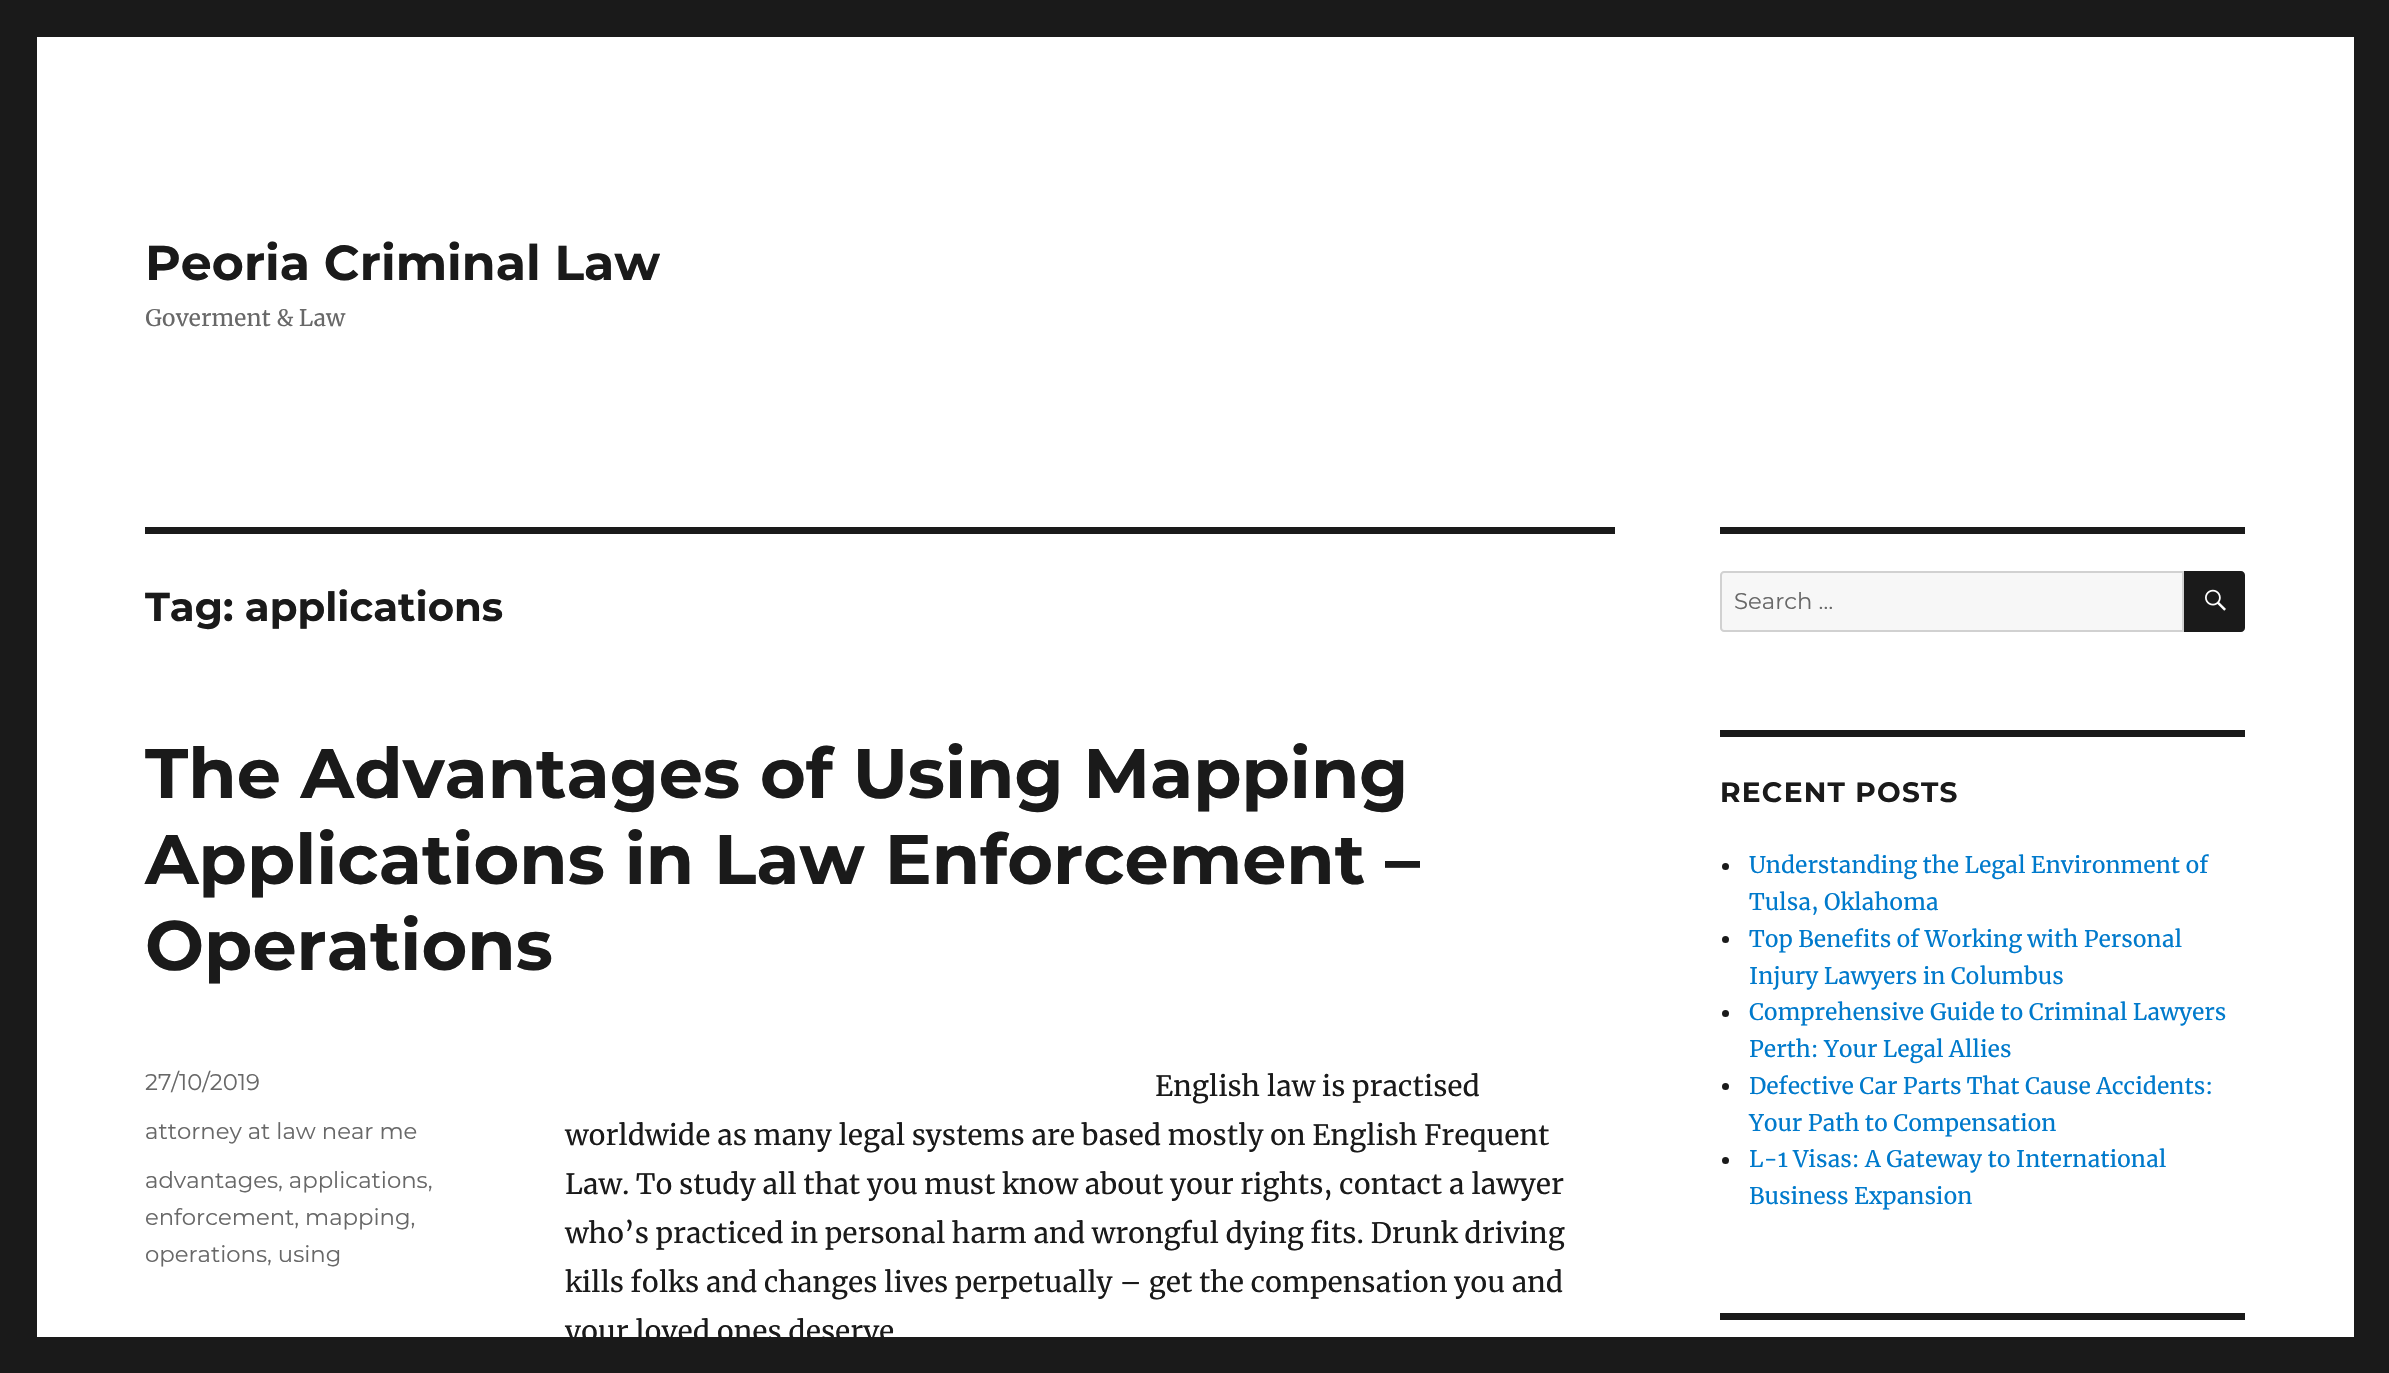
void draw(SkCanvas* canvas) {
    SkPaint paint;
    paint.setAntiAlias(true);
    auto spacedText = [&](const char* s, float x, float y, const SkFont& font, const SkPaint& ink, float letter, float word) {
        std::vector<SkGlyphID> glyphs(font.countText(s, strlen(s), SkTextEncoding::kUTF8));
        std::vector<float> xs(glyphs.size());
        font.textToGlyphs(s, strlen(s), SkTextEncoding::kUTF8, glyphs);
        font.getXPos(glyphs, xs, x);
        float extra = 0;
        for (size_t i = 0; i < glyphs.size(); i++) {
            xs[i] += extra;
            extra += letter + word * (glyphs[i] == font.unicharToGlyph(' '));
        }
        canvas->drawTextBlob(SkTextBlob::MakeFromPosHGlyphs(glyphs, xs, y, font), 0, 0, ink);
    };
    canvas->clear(0xFF1A1A1A);
    paint.setColor(0xFFFFFFFF);
    canvas->drawRect(SkRect::MakeXYWH(37, 37, 2317, 1300), paint);
    SkFont font1(fontMgr->matchFamilyStyle("Montserrat", SkFontStyle(100, SkFontStyle::kNormal_Width, SkFontStyle::kUpright_Slant)), 49);
    font1.setSubpixel(true);
    paint.setColor(0xFF1A1A1A);
    canvas->drawString("Peoria Criminal Law", 145, 280, font1, paint);
    SkFont font2(fontMgr->matchFamilyStyle("Merriweather", SkFontStyle::Normal()), 22.75f);
    font2.setSubpixel(true);
    paint.setColor(0xFF686868);
    canvas->drawString("Goverment & Law", 145, 326, font2, paint);
    paint.setColor(0xFF1A1A1A);
    canvas->drawRect(SkRect::MakeXYWH(145, 527, 1470, 7), paint);
    SkFont font3(fontMgr->matchFamilyStyle("Montserrat", SkFontStyle(100, SkFontStyle::kNormal_Width, SkFontStyle::kUpright_Slant)), 40.25f);
    font3.setSubpixel(true);
    canvas->drawString("Tag: applications", 145, 621, font3, paint);
    SkFont font4(fontMgr->matchFamilyStyle("Montserrat", SkFontStyle(100, SkFontStyle::kNormal_Width, SkFontStyle::kUpright_Slant)), 70);
    font4.setSubpixel(true);
    canvas->drawString("The Advantages of Using Mapping", 145, 798, font4, paint);
    canvas->drawString("Applications in Law Enforcement –", 145, 884, font4, paint);
    canvas->drawString("Operations", 145, 970, font4, paint);
    SkFont font5(fontMgr->matchFamilyStyle("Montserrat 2", SkFontStyle(100, SkFontStyle::kNormal_Width, SkFontStyle::kUpright_Slant)), 22.75f);
    font5.setSubpixel(true);
    paint.setColor(0xFF686868);
    canvas->drawString("27/10/2019", 145, 1090, font5, paint);
    canvas->drawString("attorney at law near me", 145, 1139, font5, paint);
    canvas->drawString("advantages, applications,", 145, 1188, font5, paint);
    canvas->drawString("enforcement, mapping,", 145, 1225, font5, paint);
    canvas->drawString("operations, using", 145, 1262, font5, paint);
    SkFont font6(fontMgr->matchFamilyStyle("Merriweather", SkFontStyle::Normal()), 28);
    font6.setSubpixel(true);
    paint.setColor(0xFF1A1A1A);
    canvas->drawString("English law is practised", 1155, 1096, font6, paint);
    canvas->drawString("worldwide as many legal systems are based mostly on English Frequent", 565, 1145, font6, paint);
    canvas->drawString("Law. To study all that you must know about your rights, contact a lawyer", 565, 1194, font6, paint);
    canvas->drawString("who’s practiced in personal harm and wrongful dying fits. Drunk driving", 565, 1243, font6, paint);
    canvas->drawString("kills folks and changes lives perpetually – get the compensation you and", 565, 1292, font6, paint);
    canvas->drawString("your loved ones deserve", 565, 1341, font6, paint);
    canvas->drawRect(SkRect::MakeXYWH(1720, 527, 525, 7), paint);
    paint.setColor(0xFFF7F7F7);
    canvas->drawPath(SkPathBuilder().moveTo(1724, 572).lineTo(2183, 572).lineTo(2183, 631).lineTo(1724, 631).cubicTo(1722.5f, 631, 1721, 629.5f, 1721, 628).lineTo(1721, 575).cubicTo(1721, 573.5f, 1722.5f, 572, 1724, 572).close().detach(), paint);
    paint.setStyle(SkPaint::kStroke_Style);
    paint.setStrokeWidth(2);
    paint.setColor(0xFFD1D1D1);
    canvas->drawPath(SkPathBuilder().moveTo(1724, 572).lineTo(2183, 572).lineTo(2183, 631).lineTo(1724, 631).cubicTo(1722.5f, 631, 1721, 629.5f, 1721, 628).lineTo(1721, 575).cubicTo(1721, 573.5f, 1722.5f, 572, 1724, 572).close().detach(), paint);
    paint.setStyle(SkPaint::kFill_Style);
    paint.setColor(0xFF686868);
    canvas->drawString("Search …", 1734, 609, font5, paint);
    paint.setColor(0xFF1A1A1A);
    canvas->drawPath(SkPathBuilder().moveTo(2184, 571).lineTo(2241, 571).cubicTo(2243, 571, 2245, 573, 2245, 575).lineTo(2245, 628).cubicTo(2245, 630, 2243, 632, 2241, 632).lineTo(2184, 632).close().detach(), paint);
    canvas->drawImageRect(SkImages::DeferredFromEncodedData(SkData::MakeFromFileName("img1.png")), SkRect::MakeXYWH(2205, 589, 21, 22), SkSamplingOptions());
    canvas->drawRect(SkRect::MakeXYWH(1720, 730, 525, 7), paint);
    SkFont font7(fontMgr->matchFamilyStyle("Montserrat", SkFontStyle(100, SkFontStyle::kNormal_Width, SkFontStyle::kUpright_Slant)), 28);
    font7.setSubpixel(true);
    spacedText("RECENT POSTS", 1720, 802, font7, paint, 1.25f, 0);
    canvas->drawCircle(1725.5f, 866.5f, 3.5f, paint);
    paint.setColor(0xFF007ACC);
    canvas->drawString("Understanding the Legal Environment of", 1749, 873, font2, paint);
    canvas->drawString("Tulsa, Oklahoma", 1749, 910, font2, paint);
    paint.setColor(0xFF1A1A1A);
    canvas->drawCircle(1725.5f, 939.5f, 3.5f, paint);
    paint.setColor(0xFF007ACC);
    canvas->drawString("Top Benefits of Working with Personal", 1749, 947, font2, paint);
    canvas->drawString("Injury Lawyers in Columbus", 1749, 984, font2, paint);
    paint.setColor(0xFF1A1A1A);
    canvas->drawCircle(1725.5f, 1013.5f, 3.5f, paint);
    paint.setColor(0xFF007ACC);
    canvas->drawString("Comprehensive Guide to Criminal Lawyers", 1749, 1020, font2, paint);
    canvas->drawString("Perth: Your Legal Allies", 1749, 1057, font2, paint);
    paint.setColor(0xFF1A1A1A);
    canvas->drawCircle(1725.5f, 1086.5f, 3.5f, paint);
    paint.setColor(0xFF007ACC);
    canvas->drawString("Defective Car Parts That Cause Accidents:", 1749, 1094, font2, paint);
    canvas->drawString("Your Path to Compensation", 1749, 1131, font2, paint);
    paint.setColor(0xFF1A1A1A);
    canvas->drawCircle(1725.5f, 1160.5f, 3.5f, paint);
    paint.setColor(0xFF007ACC);
    canvas->drawString("L-1 Visas: A Gateway to International", 1749, 1167, font2, paint);
    canvas->drawString("Business Expansion", 1749, 1204, font2, paint);
    paint.setColor(0xFF1A1A1A);
    canvas->drawRect(SkRect::MakeXYWH(1720, 1313, 525, 7), paint);
}
